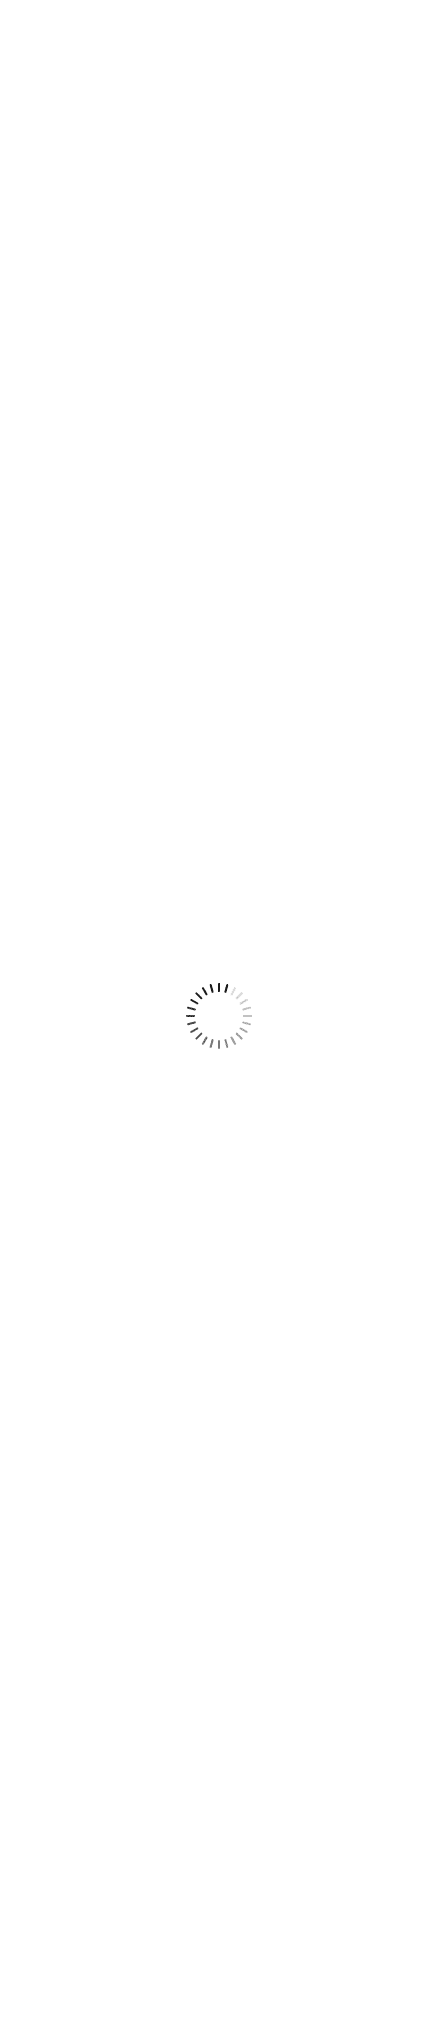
void draw(SkCanvas* canvas) {
    SkPaint paint;
    paint.setAntiAlias(true);
    canvas->clear(0xFFFFFFFF);
    canvas->drawImageRect(SkImages::DeferredFromEncodedData(SkData::MakeFromFileName("img1.png")), SkRect::MakeXYWH(186, 983, 66, 66), SkSamplingOptions());
}
